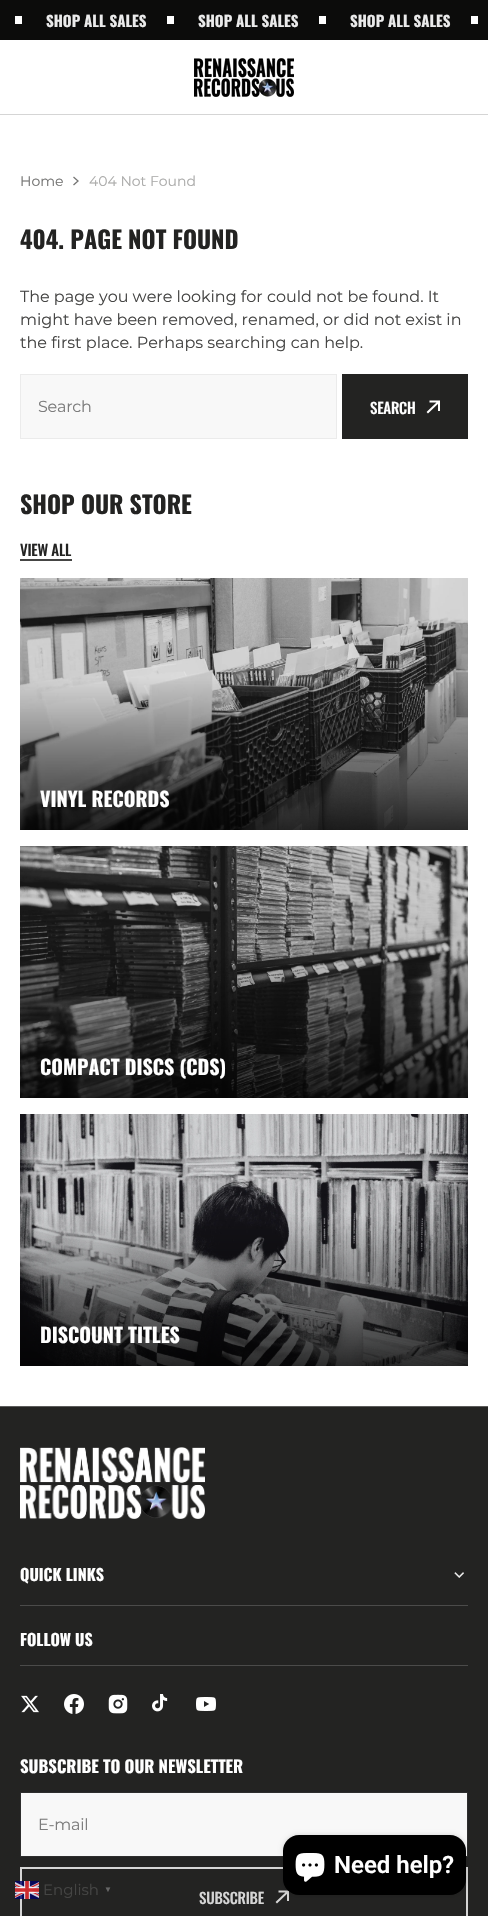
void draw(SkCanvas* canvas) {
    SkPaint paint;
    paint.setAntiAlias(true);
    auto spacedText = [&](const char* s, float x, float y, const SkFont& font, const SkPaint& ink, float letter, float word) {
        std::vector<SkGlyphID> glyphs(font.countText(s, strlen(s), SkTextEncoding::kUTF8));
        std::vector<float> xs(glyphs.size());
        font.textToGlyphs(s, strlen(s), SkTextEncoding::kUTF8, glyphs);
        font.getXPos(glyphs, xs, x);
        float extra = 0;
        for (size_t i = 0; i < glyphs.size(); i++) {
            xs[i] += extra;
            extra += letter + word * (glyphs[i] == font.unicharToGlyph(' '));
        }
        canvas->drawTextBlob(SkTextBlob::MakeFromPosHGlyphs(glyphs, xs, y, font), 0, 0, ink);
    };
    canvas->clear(0xFFFFFFFF);
    paint.setColor(0xFF0C0C0B);
    canvas->drawRect(SkRect::MakeXYWH(0, 0, 488, 40), paint);
    paint.setColor(0xFFFFFFFF);
    canvas->drawRect(SkRect::MakeXYWH(15, 16, 7, 8), paint);
    SkFont font1(fontMgr->matchFamilyStyle("Oswald", SkFontStyle::Bold()), 15);
    font1.setSubpixel(true);
    paint.setColor(0xFFEBEBEB);
    canvas->drawString("SHOP ALL SALES", 46, 27, font1, paint);
    paint.setColor(0xFFFFFFFF);
    canvas->drawRect(SkRect::MakeXYWH(167, 16, 7, 8), paint);
    paint.setColor(0xFFEBEBEB);
    canvas->drawString("SHOP ALL SALES", 198, 27, font1, paint);
    paint.setColor(0xFFFFFFFF);
    canvas->drawRect(SkRect::MakeXYWH(319, 16, 7, 8), paint);
    paint.setColor(0xFFEBEBEB);
    canvas->drawString("SHOP ALL SALES", 350, 27, font1, paint);
    paint.setColor(0xFFFFFFFF);
    canvas->drawRect(SkRect::MakeXYWH(471, 16, 7, 8), paint);
    paint.setColor(0xFFD5D5D5);
    canvas->drawRect(SkRect::MakeXYWH(0, 114, 488, 1), paint);
    canvas->drawImageRect(SkImages::DeferredFromEncodedData(SkData::MakeFromFileName("img1.png")), SkRect::MakeXYWH(194, 58, 100, 39), SkSamplingOptions());
    SkFont font2(fontMgr->matchFamilyStyle("Montserrat", SkFontStyle::Normal()), 14);
    font2.setSubpixel(true);
    paint.setColor(0xFF737372);
    canvas->drawString("Home", 20, 186, font2, paint);
    paint.setStyle(SkPaint::kStroke_Style);
    paint.setStrokeWidth(1.3f);
    paint.setStrokeCap(SkPaint::kSquare_Cap);
    canvas->drawPath(SkPathBuilder().moveTo(74, 177.5f).lineTo(78, 181).lineTo(74, 184.5f).detach(), paint);
    paint.setStyle(SkPaint::kFill_Style);
    paint.setColor(0xFFABABAA);
    canvas->drawString("404 Not Found", 89, 186, font2, paint);
    SkFont font3(fontMgr->matchFamilyStyle("Oswald", SkFontStyle::Bold()), 24);
    font3.setSubpixel(true);
    paint.setColor(0xFF232322);
    canvas->drawString("404. PAGE NOT FOUND", 20, 249, font3, paint);
    SkFont font4(fontMgr->matchFamilyStyle("Montserrat", SkFontStyle::Normal()), 16);
    font4.setSubpixel(true);
    paint.setColor(0xFF454544);
    canvas->drawString("The page you were looking for could not be found. It", 20, 302, font4, paint);
    canvas->drawString("might have been removed, renamed, or did not exist in", 20, 325, font4, paint);
    canvas->drawString("the first place. Perhaps searching can help.", 20, 348, font4, paint);
    paint.setColor(0xFFF8F8F8);
    canvas->drawRect(SkRect::MakeXYWH(20.5f, 374.5f, 316, 64), paint);
    paint.setStyle(SkPaint::kStroke_Style);
    paint.setStrokeWidth(1);
    paint.setStrokeCap(SkPaint::kButt_Cap);
    paint.setColor(0xFFEBEBEB);
    canvas->drawRect(SkRect::MakeXYWH(20.5f, 374.5f, 316, 64), paint);
    paint.setStyle(SkPaint::kFill_Style);
    paint.setColor(0xFF7C7C7C);
    spacedText("Search", 38, 412, font4, paint, -0.25f, 0);
    paint.setColor(0xFF232322);
    canvas->drawRect(SkRect::MakeXYWH(342, 374, 126, 65), paint);
    SkFont font5(fontMgr->matchFamilyStyle("Oswald", SkFontStyle(500, SkFontStyle::kNormal_Width, SkFontStyle::kUpright_Slant)), 15);
    font5.setSubpixel(true);
    paint.setColor(0xFFFFFFFF);
    spacedText("SEARCH", 370, 414, font5, paint, -0.25f, 0);
    paint.setStyle(SkPaint::kStroke_Style);
    paint.setStrokeWidth(2);
    paint.setStrokeCap(SkPaint::kSquare_Cap);
    canvas->drawPath(SkPathBuilder().moveTo(428, 412).lineTo(438, 402.5f).moveTo(430.5f, 401.5f).lineTo(439, 401.5f).lineTo(439, 410).detach(), paint);
    paint.setStyle(SkPaint::kFill_Style);
    paint.setColor(0xFF232322);
    canvas->drawString("SHOP OUR STORE", 20, 514, font3, paint);
    spacedText("VIEW ALL", 20, 556, font5, paint, -0.25f, 0);
    paint.setColor(0xFF454544);
    canvas->drawRect(SkRect::MakeXYWH(20, 559, 52, 2), paint);
    canvas->drawImageRect(SkImages::DeferredFromEncodedData(SkData::MakeFromFileName("img2.png")), SkRect::MakeXYWH(20, 578, 448, 252), SkSamplingOptions());
    SkFont font6(fontMgr->matchFamilyStyle("Oswald", SkFontStyle::Bold()), 20);
    font6.setSubpixel(true);
    paint.setColor(0xFFFFFFFF);
    canvas->drawString("VINYL RECORDS", 40, 807, font6, paint);
    canvas->drawImageRect(SkImages::DeferredFromEncodedData(SkData::MakeFromFileName("img3.png")), SkRect::MakeXYWH(20, 846, 448, 252), SkSamplingOptions());
    canvas->drawString("COMPACT DISCS (CDS)", 40, 1075, font6, paint);
    canvas->drawImageRect(SkImages::DeferredFromEncodedData(SkData::MakeFromFileName("img4.png")), SkRect::MakeXYWH(20, 1114, 448, 252), SkSamplingOptions());
    canvas->drawString("DISCOUNT TITLES", 40, 1343, font6, paint);
    paint.setColor(0xFF232322);
    canvas->drawRect(SkRect::MakeXYWH(0, 1407, 488, 509), paint);
    paint.setColor(0xFF5C5C5B);
    canvas->drawRect(SkRect::MakeXYWH(0, 1406, 488, 1), paint);
    canvas->drawImageRect(SkImages::DeferredFromEncodedData(SkData::MakeFromFileName("img5.png")), SkRect::MakeXYWH(20, 1447, 185, 72), SkSamplingOptions());
    paint.setColor(0xFF4B4B4A);
    canvas->drawRect(SkRect::MakeXYWH(20, 1605, 448, 1), paint);
    SkFont font7(fontMgr->matchFamilyStyle("Oswald", SkFontStyle::Bold()), 16);
    font7.setSubpixel(true);
    paint.setColor(0xFFFFFFFF);
    canvas->drawString("QUICK LINKS", 20, 1581, font7, paint);
    canvas->drawImageRect(SkImages::DeferredFromEncodedData(SkData::MakeFromFileName("img6.png")), SkRect::MakeXYWH(454, 1572, 10, 6), SkSamplingOptions());
    paint.setColor(0xFF4B4B4A);
    canvas->drawRect(SkRect::MakeXYWH(20, 1665, 448, 1), paint);
    paint.setColor(0xFFFFFFFF);
    canvas->drawString("FOLLOW US", 20, 1646, font7, paint);
    canvas->drawImageRect(SkImages::DeferredFromEncodedData(SkData::MakeFromFileName("img7.png")), SkRect::MakeXYWH(21, 1695, 18, 18), SkSamplingOptions());
    canvas->drawImageRect(SkImages::DeferredFromEncodedData(SkData::MakeFromFileName("img8.png")), SkRect::MakeXYWH(64, 1694, 20, 20), SkSamplingOptions());
    canvas->drawImageRect(SkImages::DeferredFromEncodedData(SkData::MakeFromFileName("img9.png")), SkRect::MakeXYWH(108, 1694, 20, 20), SkSamplingOptions());
    canvas->drawImageRect(SkImages::DeferredFromEncodedData(SkData::MakeFromFileName("img10.png")), SkRect::MakeXYWH(152, 1694, 16, 18), SkSamplingOptions());
    canvas->drawImageRect(SkImages::DeferredFromEncodedData(SkData::MakeFromFileName("img11.png")), SkRect::MakeXYWH(196, 1697, 20, 14), SkSamplingOptions());
    SkFont font8(fontMgr->matchFamilyStyle("Oswald", SkFontStyle::Bold()), 16.75f);
    font8.setSubpixel(true);
    canvas->drawString("SUBSCRIBE TO OUR NEWSLETTER", 20, 1773, font8, paint);
    paint.setColor(0xFFF8F8F8);
    canvas->drawRect(SkRect::MakeXYWH(20.5f, 1792.5f, 447, 64), paint);
    paint.setStyle(SkPaint::kStroke_Style);
    paint.setStrokeWidth(1);
    paint.setStrokeCap(SkPaint::kButt_Cap);
    paint.setColor(0xFF2E2E2E);
    canvas->drawRect(SkRect::MakeXYWH(20.5f, 1792.5f, 447, 64), paint);
    paint.setStyle(SkPaint::kFill_Style);
    paint.setColor(0xFF7C7C7C);
    spacedText("E-mail", 38, 1830, font4, paint, -0.25f, 0);
    paint.setStyle(SkPaint::kStroke_Style);
    paint.setStrokeWidth(2);
    paint.setColor(0xFFD5D5D5);
    canvas->drawRect(SkRect::MakeXYWH(21, 1868, 446, 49), paint);
    paint.setStyle(SkPaint::kFill_Style);
    spacedText("SUBSCRIBE", 199, 1904, font5, paint, -0.25f, 0);
    paint.setStyle(SkPaint::kStroke_Style);
    paint.setStrokeCap(SkPaint::kSquare_Cap);
    canvas->drawPath(SkPathBuilder().moveTo(277, 1902).lineTo(287, 1892.5f).moveTo(279.5f, 1891.5f).lineTo(288, 1891.5f).lineTo(288, 1900).detach(), paint);
    paint.setStyle(SkPaint::kFill_Style);
    paint.setColor(0x26000000);
    paint.setMaskFilter(SkMaskFilter::MakeBlur(kNormal_SkBlurStyle, 2.5f));
    canvas->drawRoundRect(SkRect::MakeXYWH(283, 1835, 183, 60), 16, 16, paint);
    paint.setMaskFilter(nullptr);
    paint.setColor(0xFF000000);
    canvas->drawRoundRect(SkRect::MakeXYWH(283, 1835, 183, 60), 16, 16, paint);
    canvas->drawImageRect(SkImages::DeferredFromEncodedData(SkData::MakeFromFileName("img12.png")), SkRect::MakeXYWH(295, 1853, 30, 29), SkSamplingOptions());
    SkFont font9(fontMgr->matchFamilyStyle("Roboto", SkFontStyle(600, SkFontStyle::kNormal_Width, SkFontStyle::kUpright_Slant)), 24);
    font9.setSubpixel(true);
    paint.setColor(0xFFFFFFFF);
    canvas->drawString("Need help?", 334, 1873, font9, paint);
    canvas->drawImageRect(SkImages::DeferredFromEncodedData(SkData::MakeFromFileName("img13.png")), SkRect::MakeXYWH(15, 1881, 24, 18), SkSamplingOptions());
    SkFont font10(fontMgr->matchFamilyStyle("Montserrat", SkFontStyle::Normal()), 15);
    font10.setSubpixel(true);
    paint.setColor(0xFF454544);
    canvas->drawString("English", 43, 1895, font10, paint);
    SkFont font11(fontMgr->matchFamilyStyle("Liberation Sans", SkFontStyle::Bold()), 8);
    font11.setSubpixel(true);
    paint.setColor(0xFF666666);
    canvas->drawString("▼", 104, 1892, font11, paint);
}
